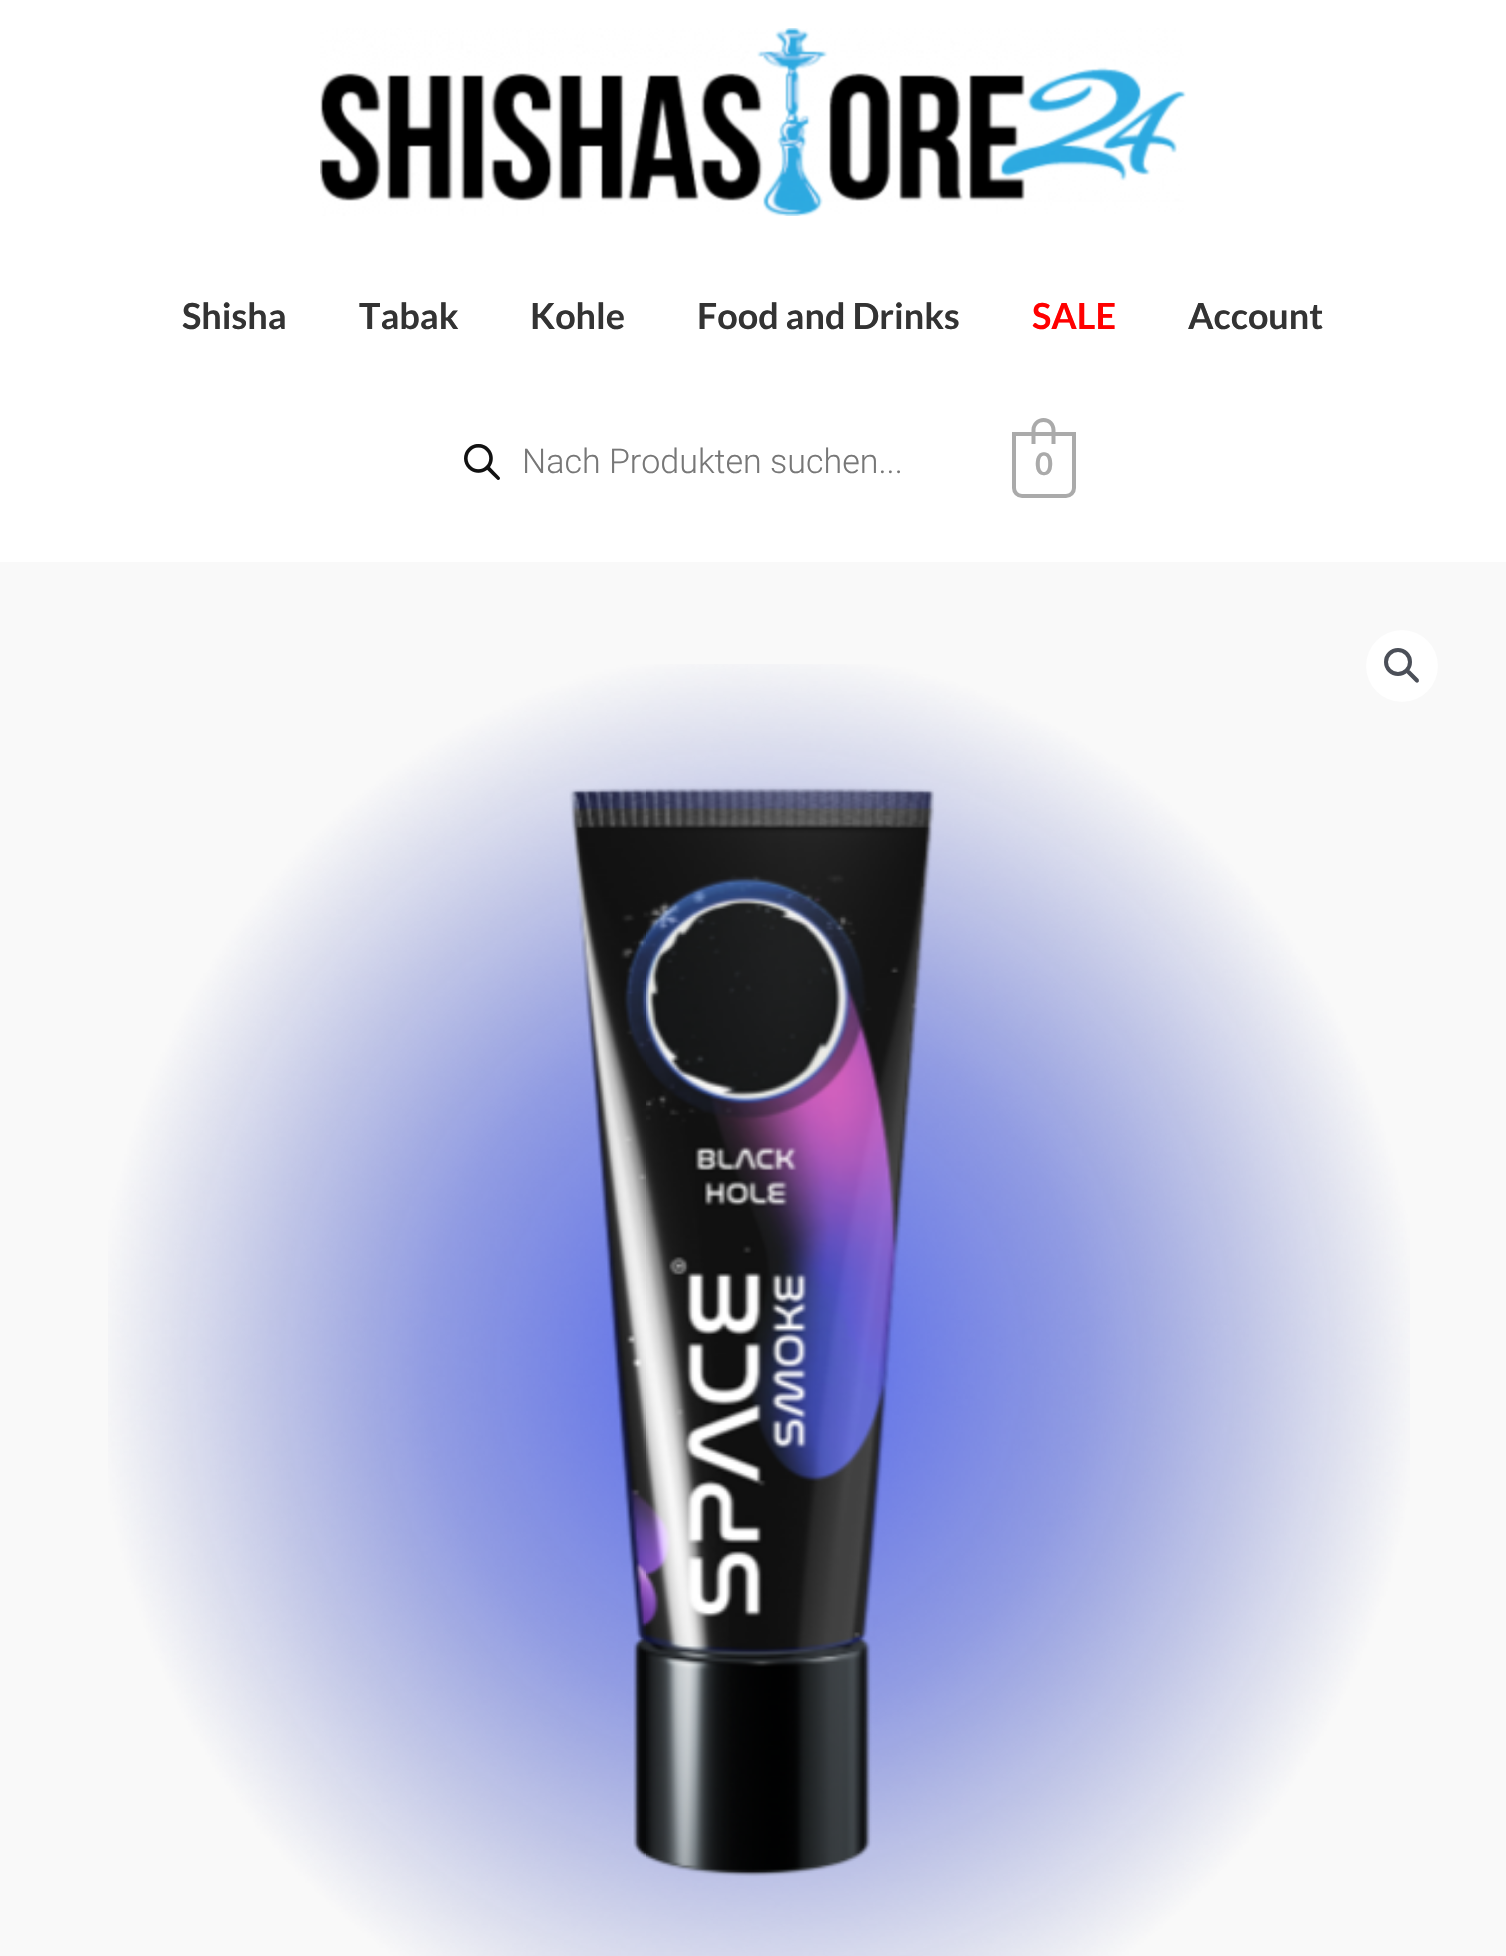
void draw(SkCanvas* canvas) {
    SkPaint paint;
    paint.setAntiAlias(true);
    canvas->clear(0xFFF9F9F9);
    paint.setColor(0xFFFFFFFF);
    canvas->drawRect(SkRect::MakeXYWH(0, 0, 1506, 562), paint);
    canvas->drawImageRect(SkImages::DeferredFromEncodedData(SkData::MakeFromFileName("img1.png")), SkRect::MakeXYWH(320, 28, 866, 188), SkSamplingOptions());
    SkFont font1(fontMgr->matchFamilyStyle("Lato", SkFontStyle::Bold()), 36);
    font1.setSubpixel(true);
    paint.setColor(0xFF333333);
    canvas->drawString("Shisha", 182, 329, font1, paint);
    canvas->drawString("Tabak", 359, 329, font1, paint);
    canvas->drawString("Kohle", 530, 329, font1, paint);
    canvas->drawString("Food and Drinks", 697, 329, font1, paint);
    paint.setColor(0xFFFF0000);
    canvas->drawString("SALE", 1032, 329, font1, paint);
    paint.setColor(0xFF333333);
    canvas->drawString("Account", 1188, 329, font1, paint);
    canvas->drawImageRect(SkImages::DeferredFromEncodedData(SkData::MakeFromFileName("img2.png")), SkRect::MakeXYWH(464, 444, 36, 36), SkSamplingOptions());
    SkFont font2(fontMgr->matchFamilyStyle("Roboto", SkFontStyle(300, SkFontStyle::kNormal_Width, SkFontStyle::kUpright_Slant)), 34);
    font2.setSubpixel(true);
    paint.setColor(0xFF777777);
    canvas->drawString("Nach Produkten suchen...", 522, 473, font2, paint);
    paint.setStyle(SkPaint::kStroke_Style);
    paint.setStrokeWidth(4);
    paint.setColor(0xFFAAAAAA);
    canvas->drawPath(SkPathBuilder().moveTo(1014, 434).lineTo(1074, 434).lineTo(1074, 488).cubicTo(1074, 492.5f, 1070.5f, 496, 1066, 496).lineTo(1022, 496).cubicTo(1017.5f, 496, 1014, 492.5f, 1014, 488).close().detach(), paint);
    paint.setStyle(SkPaint::kFill_Style);
    canvas->drawPath(SkPathBuilder(SkPathFillType::kEvenOdd).moveTo(1043.5f, 418).cubicTo(1050.5f, 418, 1055.5f, 423.5f, 1055.5f, 430).lineTo(1055.5f, 444).lineTo(1031.5f, 444).lineTo(1031.5f, 430).cubicTo(1031.5f, 423.5f, 1037, 418, 1043.5f, 418).close().moveTo(1043.5f, 422).cubicTo(1048, 422, 1051.5f, 425.5f, 1051.5f, 430).lineTo(1051.5f, 444).lineTo(1035.5f, 444).lineTo(1035.5f, 430).cubicTo(1035.5f, 425.5f, 1039, 422, 1043.5f, 422).close().detach(), paint);
    SkFont font3(fontMgr->matchFamilyStyle("Lato", SkFontStyle::Bold()), 31);
    font3.setSubpixel(true);
    canvas->drawString("0", 1035, 475, font3, paint);
    canvas->drawImageRect(SkImages::DeferredFromEncodedData(SkData::MakeFromFileName("img3.png")), SkRect::MakeXYWH(108, 664, 1302, 1292), SkSamplingOptions());
    paint.setColor(0xFFFFFFFF);
    canvas->drawCircle(1402, 666, 36, paint);
    paint.setStyle(SkPaint::kStroke_Style);
    paint.setColor(0xFF4B4F58);
    canvas->drawCircle(1398, 662, 12, paint);
    paint.setStyle(SkPaint::kFill_Style);
    canvas->drawPath(SkPathBuilder().moveTo(1407, 670.5f).cubicTo(1408, 670, 1409, 670, 1410, 670.5f).lineTo(1418.5f, 679).cubicTo(1419, 680, 1419, 681.5f, 1418.5f, 682).cubicTo(1417.5f, 683, 1416.5f, 683, 1415.5f, 682).lineTo(1407, 673.5f).cubicTo(1406, 673, 1406, 671.5f, 1407, 670.5f).close().detach(), paint);
}
